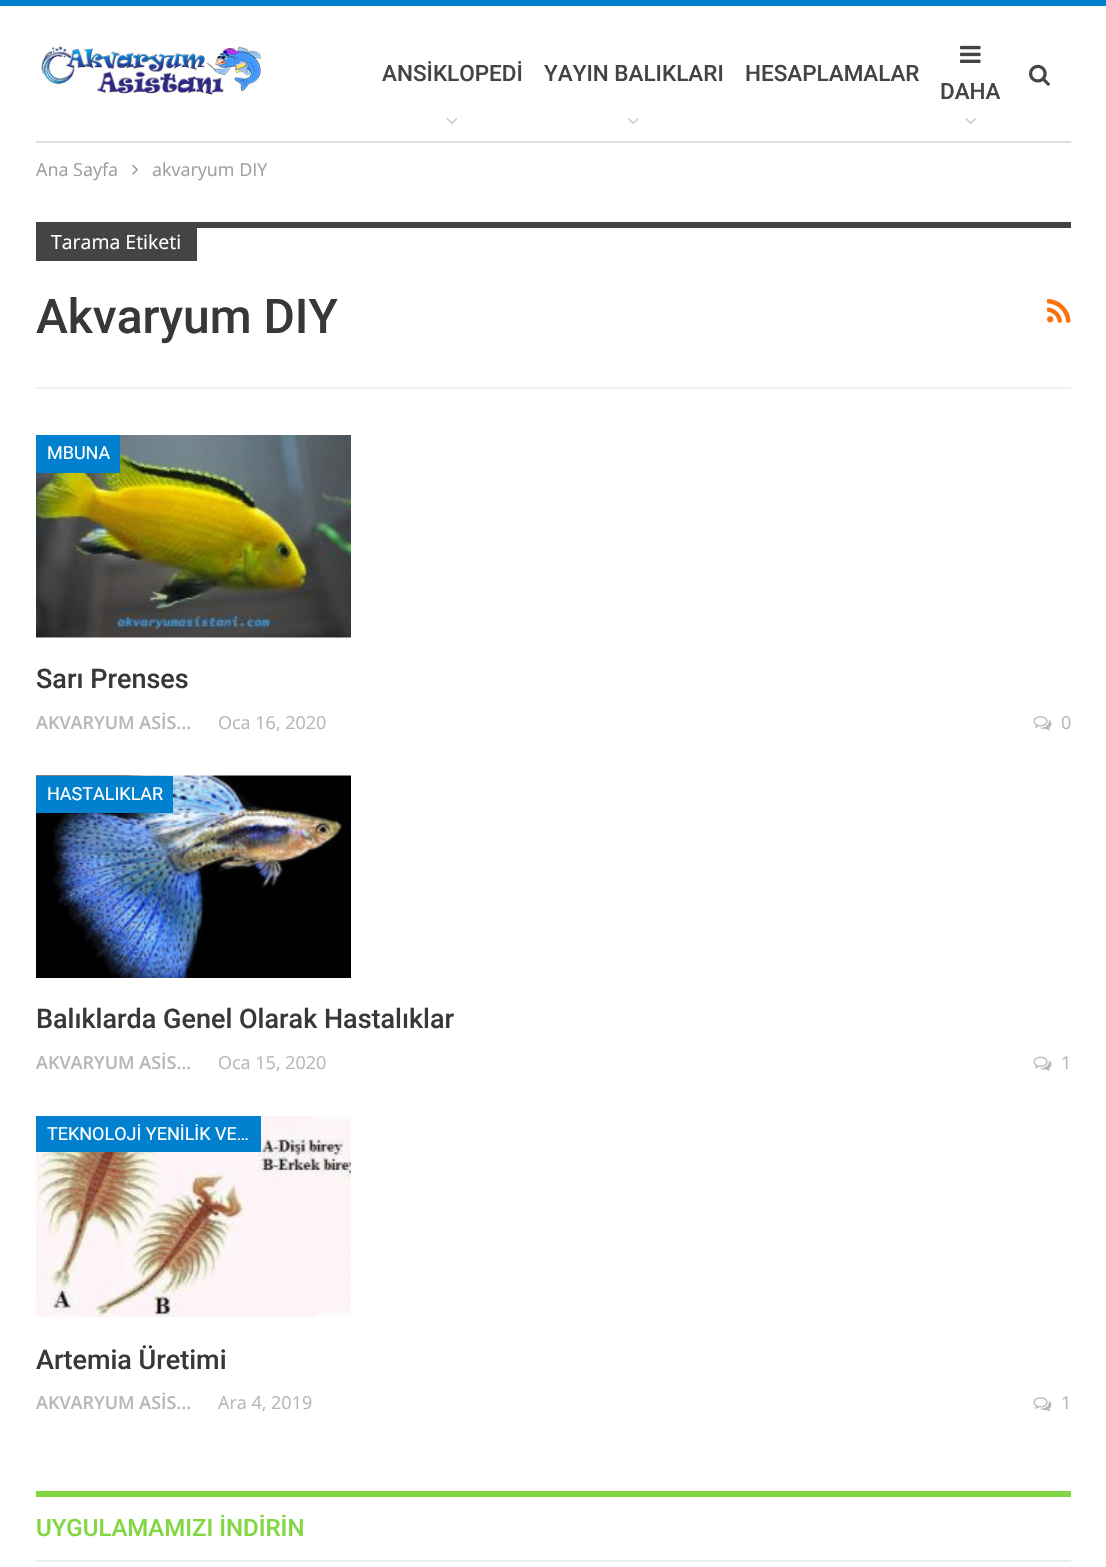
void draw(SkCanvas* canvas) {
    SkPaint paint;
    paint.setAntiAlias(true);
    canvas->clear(0xFF0080CE);
    paint.setColor(0xFFFFFFFF);
    canvas->drawRect(SkRect::MakeXYWH(0, 6, 1106, 1561), paint);
    paint.setColor(0xFFDEDEDE);
    canvas->drawRect(SkRect::MakeXYWH(36, 141, 1035, 2), paint);
    canvas->drawImageRect(SkImages::DeferredFromEncodedData(SkData::MakeFromFileName("img1.png")), SkRect::MakeXYWH(41, 46, 220, 49), SkSamplingOptions());
    SkFont font1(fontMgr->matchFamilyStyle("Roboto", SkFontStyle(500, SkFontStyle::kNormal_Width, SkFontStyle::kUpright_Slant)), 22.5f);
    font1.setSubpixel(true);
    paint.setColor(0xFF444444);
    canvas->drawString("ANSİKLOPEDİ", 382, 81, font1, paint);
    canvas->drawImageRect(SkImages::DeferredFromEncodedData(SkData::MakeFromFileName("img2.png")), SkRect::MakeXYWH(446, 118, 11, 6), SkSamplingOptions());
    canvas->drawString("YAYIN BALIKLARI", 544, 81, font1, paint);
    canvas->drawImageRect(SkImages::DeferredFromEncodedData(SkData::MakeFromFileName("img3.png")), SkRect::MakeXYWH(628, 118, 11, 6), SkSamplingOptions());
    canvas->drawString("HESAPLAMALAR", 745, 81, font1, paint);
    canvas->drawImageRect(SkImages::DeferredFromEncodedData(SkData::MakeFromFileName("img4.png")), SkRect::MakeXYWH(960, 45, 21, 18), SkSamplingOptions());
    canvas->drawString("DAHA", 940, 99, font1, paint);
    canvas->drawImageRect(SkImages::DeferredFromEncodedData(SkData::MakeFromFileName("img2.png")), SkRect::MakeXYWH(965, 118, 11, 6), SkSamplingOptions());
    canvas->drawImageRect(SkImages::DeferredFromEncodedData(SkData::MakeFromFileName("img5.png")), SkRect::MakeXYWH(1029, 64, 21, 22), SkSamplingOptions());
    SkFont font2(fontMgr->matchFamilyStyle("Open Sans", SkFontStyle::Normal()), 18);
    font2.setSubpixel(true);
    paint.setColor(0xFF9E9E9E);
    canvas->drawString("Ana Sayfa", 36, 176, font2, paint);
    canvas->drawImageRect(SkImages::DeferredFromEncodedData(SkData::MakeFromFileName("img6.png")), SkRect::MakeXYWH(132, 164, 6, 11), SkSamplingOptions());
    canvas->drawString("akvaryum DIY", 152, 176, font2, paint);
    paint.setColor(0xFFF0F0F0);
    canvas->drawRect(SkRect::MakeXYWH(36, 387, 1035, 2), paint);
    paint.setColor(0xFF444444);
    canvas->drawRect(SkRect::MakeXYWH(197, 222, 874, 6), paint);
    canvas->drawRect(SkRect::MakeXYWH(36, 222, 161, 39), paint);
    SkFont font3(fontMgr->matchFamilyStyle("Open Sans", SkFontStyle::Normal()), 19.5f);
    font3.setSubpixel(true);
    paint.setColor(0xFFFFFFFF);
    canvas->drawString("Tarama Etiketi", 51, 249, font3, paint);
    SkFont font4(fontMgr->matchFamilyStyle("Roboto", SkFontStyle(500, SkFontStyle::kNormal_Width, SkFontStyle::kUpright_Slant)), 48);
    font4.setSubpixel(true);
    paint.setColor(0xFF383838);
    canvas->drawString("Akvaryum DIY", 36, 333, font4, paint);
    canvas->drawImageRect(SkImages::DeferredFromEncodedData(SkData::MakeFromFileName("img7.png")), SkRect::MakeXYWH(1047, 298, 24, 25), SkSamplingOptions());
    canvas->drawImageRect(SkImages::DeferredFromEncodedData(SkData::MakeFromFileName("img8.png")), SkRect::MakeXYWH(36, 435, 315, 203), SkSamplingOptions());
    paint.setColor(0xFF0080CE);
    canvas->drawRect(SkRect::MakeXYWH(36, 435, 84, 38), paint);
    SkFont font5(fontMgr->matchFamilyStyle("Roboto", SkFontStyle::Normal()), 18);
    font5.setSubpixel(true);
    paint.setColor(0xFFFFFFFF);
    canvas->drawString("MBUNA", 47, 459, font5, paint);
    SkFont font6(fontMgr->matchFamilyStyle("Roboto", SkFontStyle(500, SkFontStyle::kNormal_Width, SkFontStyle::kUpright_Slant)), 27);
    font6.setSubpixel(true);
    paint.setColor(0xFF383838);
    canvas->drawString("Sarı Prenses", 36, 688, font6, paint);
    SkFont font7(fontMgr->matchFamilyStyle("Open Sans", SkFontStyle(600, SkFontStyle::kNormal_Width, SkFontStyle::kUpright_Slant)), 18);
    font7.setSubpixel(true);
    paint.setColor(0xFFB7B7B7);
    canvas->drawString("AKVARYUM ASİS…", 36, 729, font7, paint);
    canvas->drawString("Oca 16, 2020", 218, 729, font2, paint);
    canvas->drawImageRect(SkImages::DeferredFromEncodedData(SkData::MakeFromFileName("img9.png")), SkRect::MakeXYWH(1033, 716, 19, 15), SkSamplingOptions());
    canvas->drawString("0", 1061, 729, font2, paint);
    canvas->drawImageRect(SkImages::DeferredFromEncodedData(SkData::MakeFromFileName("img10.png")), SkRect::MakeXYWH(36, 775, 315, 203), SkSamplingOptions());
    paint.setColor(0xFF0080CE);
    canvas->drawRect(SkRect::MakeXYWH(36, 776, 137, 37), paint);
    paint.setColor(0xFFFFFFFF);
    canvas->drawString("HASTALIKLAR", 47, 800, font5, paint);
    paint.setColor(0xFF383838);
    canvas->drawString("Balıklarda Genel Olarak Hastalıklar", 36, 1028, font6, paint);
    paint.setColor(0xFFB7B7B7);
    canvas->drawString("AKVARYUM ASİS…", 36, 1069, font7, paint);
    canvas->drawString("Oca 15, 2020", 218, 1069, font2, paint);
    canvas->drawImageRect(SkImages::DeferredFromEncodedData(SkData::MakeFromFileName("img11.png")), SkRect::MakeXYWH(1033, 1056, 19, 15), SkSamplingOptions());
    canvas->drawString("1", 1061, 1069, font2, paint);
    canvas->drawImageRect(SkImages::DeferredFromEncodedData(SkData::MakeFromFileName("img12.png")), SkRect::MakeXYWH(36, 1116, 315, 201), SkSamplingOptions());
    paint.setColor(0xFF0080CE);
    canvas->drawRect(SkRect::MakeXYWH(36, 1116, 225, 36), paint);
    paint.setColor(0xFFFFFFFF);
    canvas->drawString("TEKNOLOJİ YENİLİK VE…", 47, 1140, font5, paint);
    paint.setColor(0xFF383838);
    canvas->drawString("Artemia Üretimi", 36, 1369, font6, paint);
    paint.setColor(0xFFB7B7B7);
    canvas->drawString("AKVARYUM ASİS…", 36, 1409, font7, paint);
    canvas->drawString("Ara 4, 2019", 218, 1409, font2, paint);
    canvas->drawImageRect(SkImages::DeferredFromEncodedData(SkData::MakeFromFileName("img9.png")), SkRect::MakeXYWH(1033, 1397, 19, 15), SkSamplingOptions());
    canvas->drawString("1", 1061, 1409, font2, paint);
    paint.setColor(0xFF81D742);
    canvas->drawRect(SkRect::MakeXYWH(36, 1491, 1035, 6), paint);
    SkFont font8(fontMgr->matchFamilyStyle("Roboto", SkFontStyle(500, SkFontStyle::kNormal_Width, SkFontStyle::kUpright_Slant)), 24);
    font8.setSubpixel(true);
    canvas->drawString("UYGULAMAMIZI İNDİRİN", 36, 1536, font8, paint);
    paint.setColor(0xFFEDEDED);
    canvas->drawRect(SkRect::MakeXYWH(36, 1560, 1035, 2), paint);
}
